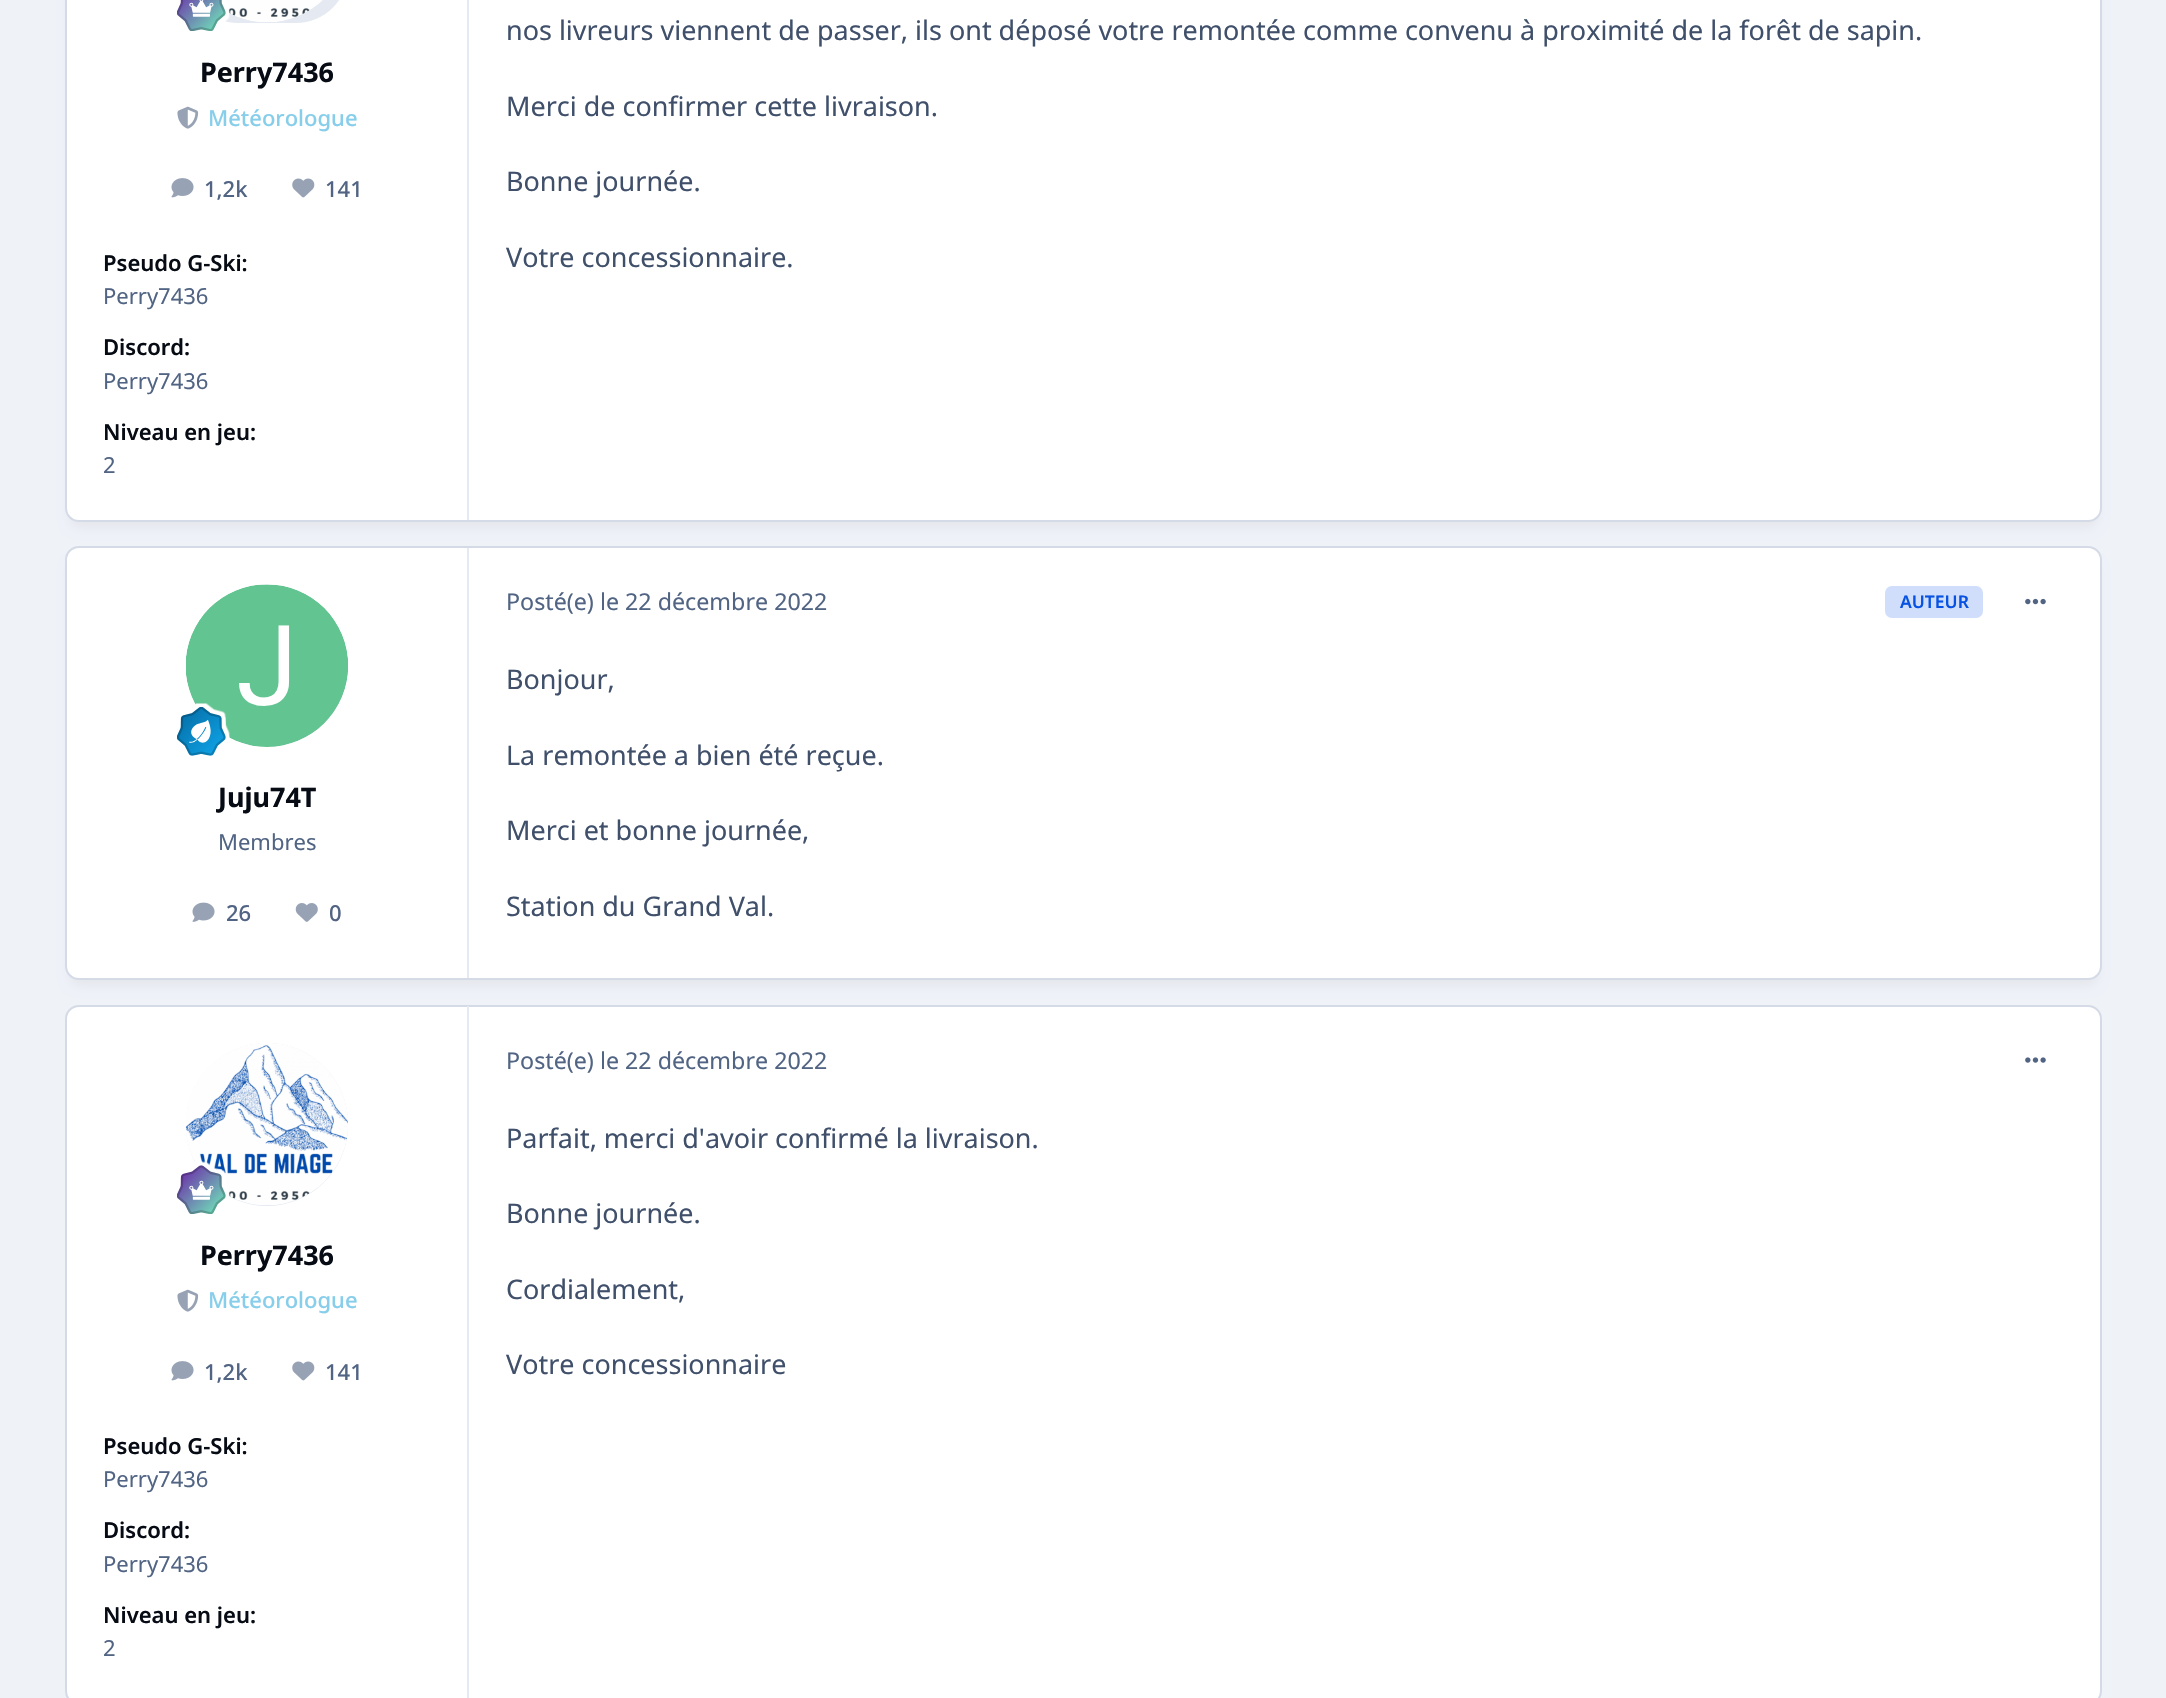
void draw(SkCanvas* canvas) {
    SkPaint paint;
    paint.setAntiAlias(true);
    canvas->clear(0xFFEFF2F7);
    paint.setColor(0x0D01030A);
    paint.setMaskFilter(SkMaskFilter::MakeBlur(kNormal_SkBlurStyle, 6));
    canvas->drawRoundRect(SkRect::MakeXYWH(70, -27, 2027, 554), 9, 9, paint);
    paint.setMaskFilter(nullptr);
    paint.setColor(0xFFFFFFFF);
    canvas->drawRoundRect(SkRect::MakeXYWH(66, -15, 2035, 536), 13, 13, paint);
    paint.setStyle(SkPaint::kStroke_Style);
    paint.setStrokeWidth(2);
    paint.setColor(0xFFD5DBE6);
    canvas->drawRoundRect(SkRect::MakeXYWH(66, -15, 2035, 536), 13, 13, paint);
    paint.setStyle(SkPaint::kFill_Style);
    paint.setColor(0xFFE5EAF2);
    canvas->drawRect(SkRect::MakeXYWH(467, 0, 2, 520), paint);
    canvas->drawRoundRect(SkRect::MakeXYWH(186, -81, 162, 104), 81, 81, paint);
    canvas->drawImageRect(SkImages::DeferredFromEncodedData(SkData::MakeFromFileName("img1.png")), SkRect::MakeXYWH(225, 0, 98, 22), SkSamplingOptions());
    canvas->drawImageRect(SkImages::DeferredFromEncodedData(SkData::MakeFromFileName("img2.png")), SkRect::MakeXYWH(177, 0, 53, 31), SkSamplingOptions());
    SkFont font1(fontMgr->matchFamilyStyle("Noto Sans", SkFontStyle::Bold()), 26.95f);
    font1.setSubpixel(true);
    paint.setColor(0xFF060B14);
    canvas->drawString("Perry7436", 200, 82, font1, paint);
    canvas->drawImageRect(SkImages::DeferredFromEncodedData(SkData::MakeFromFileName("img3.png")), SkRect::MakeXYWH(177, 106, 22, 23), SkSamplingOptions());
    SkFont font2(fontMgr->matchFamilyStyle("Noto Sans", SkFontStyle(500, SkFontStyle::kNormal_Width, SkFontStyle::kUpright_Slant)), 22);
    font2.setSubpixel(true);
    paint.setColor(0xFF87CEEB);
    canvas->drawString("Météorologue", 208, 126, font2, paint);
    canvas->drawImageRect(SkImages::DeferredFromEncodedData(SkData::MakeFromFileName("img4.png")), SkRect::MakeXYWH(171, 178, 23, 20), SkSamplingOptions());
    paint.setColor(0xFF516483);
    canvas->drawString("1,2k", 204, 197, font2, paint);
    canvas->drawImageRect(SkImages::DeferredFromEncodedData(SkData::MakeFromFileName("img5.png")), SkRect::MakeXYWH(292, 178, 23, 20), SkSamplingOptions());
    canvas->drawString("141", 325, 197, font2, paint);
    SkFont font3(fontMgr->matchFamilyStyle("Noto Sans", SkFontStyle(600, SkFontStyle::kNormal_Width, SkFontStyle::kUpright_Slant)), 22);
    font3.setSubpixel(true);
    paint.setColor(0xFF060B14);
    canvas->drawString("Pseudo G-Ski:", 103, 271, font3, paint);
    SkFont font4(fontMgr->matchFamilyStyle("Noto Sans", SkFontStyle::Normal()), 22);
    font4.setSubpixel(true);
    paint.setColor(0xFF516483);
    canvas->drawString("Perry7436", 103, 304, font4, paint);
    paint.setColor(0xFF060B14);
    canvas->drawString("Discord:", 103, 355, font3, paint);
    paint.setColor(0xFF516483);
    canvas->drawString("Perry7436", 103, 389, font4, paint);
    paint.setColor(0xFF060B14);
    canvas->drawString("Niveau en jeu:", 103, 440, font3, paint);
    paint.setColor(0xFF516483);
    canvas->drawString("2", 103, 473, font4, paint);
    SkFont font5(fontMgr->matchFamilyStyle("Noto Sans", SkFontStyle::Normal()), 26.95f);
    font5.setSubpixel(true);
    paint.setColor(0xFF40506B);
    canvas->drawString("nos livreurs viennent de passer, ils ont déposé votre remontée comme convenu à proximité de la forêt de sapin.", 506, 40, font5, paint);
    canvas->drawString("Merci de confirmer cette livraison.", 506, 116, font5, paint);
    canvas->drawString("Bonne journée.", 506, 191, font5, paint);
    canvas->drawString("Votre concessionnaire.", 506, 267, font5, paint);
    paint.setColor(0x0D01030A);
    paint.setMaskFilter(SkMaskFilter::MakeBlur(kNormal_SkBlurStyle, 6));
    canvas->drawRoundRect(SkRect::MakeXYWH(70, 562, 2027, 423), 9, 9, paint);
    paint.setMaskFilter(nullptr);
    paint.setColor(0xFFFFFFFF);
    canvas->drawRoundRect(SkRect::MakeXYWH(66, 547, 2035, 432), 13, 13, paint);
    paint.setStyle(SkPaint::kStroke_Style);
    paint.setColor(0xFFD5DBE6);
    canvas->drawRoundRect(SkRect::MakeXYWH(66, 547, 2035, 432), 13, 13, paint);
    paint.setStyle(SkPaint::kFill_Style);
    paint.setColor(0xFFE5EAF2);
    canvas->drawRect(SkRect::MakeXYWH(467, 548, 2, 430), paint);
    canvas->drawCircle(267, 666, 81, paint);
    canvas->drawImageRect(SkImages::DeferredFromEncodedData(SkData::MakeFromFileName("img6.png")), SkRect::MakeXYWH(186, 584, 162, 163), SkSamplingOptions());
    canvas->drawImageRect(SkImages::DeferredFromEncodedData(SkData::MakeFromFileName("img7.png")), SkRect::MakeXYWH(177, 703, 53, 53), SkSamplingOptions());
    paint.setColor(0xFF060B14);
    canvas->drawString("Juju74T", 218, 807, font1, paint);
    paint.setColor(0xFF516483);
    canvas->drawString("Membres", 218, 850, font4, paint);
    canvas->drawImageRect(SkImages::DeferredFromEncodedData(SkData::MakeFromFileName("img8.png")), SkRect::MakeXYWH(192, 902, 23, 20), SkSamplingOptions());
    canvas->drawString("26", 226, 921, font2, paint);
    canvas->drawImageRect(SkImages::DeferredFromEncodedData(SkData::MakeFromFileName("img9.png")), SkRect::MakeXYWH(295, 903, 23, 19), SkSamplingOptions());
    canvas->drawString("0", 329, 921, font2, paint);
    SkFont font6(fontMgr->matchFamilyStyle("Noto Sans", SkFontStyle::Normal()), 23.25f);
    font6.setSubpixel(true);
    canvas->drawString("Posté(e) le 22 décembre 2022", 506, 610, font6, paint);
    paint.setColor(0xFFD0DEFB);
    canvas->drawRoundRect(SkRect::MakeXYWH(1885, 586, 98, 32), 7, 7, paint);
    SkFont font7(fontMgr->matchFamilyStyle("Noto Sans", SkFontStyle(600, SkFontStyle::kNormal_Width, SkFontStyle::kUpright_Slant)), 17.5f);
    font7.setSubpixel(true);
    paint.setColor(0xFF0752E2);
    canvas->drawString("AUTEUR", 1900, 608, font7, paint);
    canvas->drawImageRect(SkImages::DeferredFromEncodedData(SkData::MakeFromFileName("img10.png")), SkRect::MakeXYWH(2025, 598, 21, 7), SkSamplingOptions());
    paint.setColor(0xFF40506B);
    canvas->drawString("Bonjour,", 506, 689, font5, paint);
    canvas->drawString("La remontée a bien été reçue.", 506, 765, font5, paint);
    canvas->drawString("Merci et bonne journée,", 506, 840, font5, paint);
    canvas->drawString("Station du Grand Val.", 506, 916, font5, paint);
    paint.setColor(0xFFFFFFFF);
    canvas->drawRoundRect(SkRect::MakeXYWH(66, 1006, 2035, 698), 13, 13, paint);
    paint.setStyle(SkPaint::kStroke_Style);
    paint.setColor(0xFFD5DBE6);
    canvas->drawRoundRect(SkRect::MakeXYWH(66, 1006, 2035, 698), 13, 13, paint);
    paint.setStyle(SkPaint::kFill_Style);
    paint.setColor(0xFFE5EAF2);
    canvas->drawRect(SkRect::MakeXYWH(467, 1006, 2, 692), paint);
    canvas->drawRoundRect(SkRect::MakeXYWH(186, 1043, 162, 163), 81, 81, paint);
    canvas->drawImageRect(SkImages::DeferredFromEncodedData(SkData::MakeFromFileName("img11.png")), SkRect::MakeXYWH(185, 1043, 163, 162), SkSamplingOptions());
    canvas->drawImageRect(SkImages::DeferredFromEncodedData(SkData::MakeFromFileName("img12.png")), SkRect::MakeXYWH(177, 1161, 53, 53), SkSamplingOptions());
    paint.setColor(0xFF060B14);
    canvas->drawString("Perry7436", 200, 1265, font1, paint);
    canvas->drawImageRect(SkImages::DeferredFromEncodedData(SkData::MakeFromFileName("img3.png")), SkRect::MakeXYWH(177, 1289, 22, 23), SkSamplingOptions());
    paint.setColor(0xFF87CEEB);
    canvas->drawString("Météorologue", 208, 1308, font2, paint);
    canvas->drawImageRect(SkImages::DeferredFromEncodedData(SkData::MakeFromFileName("img4.png")), SkRect::MakeXYWH(171, 1361, 23, 20), SkSamplingOptions());
    paint.setColor(0xFF516483);
    canvas->drawString("1,2k", 204, 1380, font2, paint);
    canvas->drawImageRect(SkImages::DeferredFromEncodedData(SkData::MakeFromFileName("img5.png")), SkRect::MakeXYWH(292, 1361, 23, 20), SkSamplingOptions());
    canvas->drawString("141", 325, 1380, font2, paint);
    paint.setColor(0xFF060B14);
    canvas->drawString("Pseudo G-Ski:", 103, 1454, font3, paint);
    paint.setColor(0xFF516483);
    canvas->drawString("Perry7436", 103, 1487, font4, paint);
    paint.setColor(0xFF060B14);
    canvas->drawString("Discord:", 103, 1538, font3, paint);
    paint.setColor(0xFF516483);
    canvas->drawString("Perry7436", 103, 1572, font4, paint);
    paint.setColor(0xFF060B14);
    canvas->drawString("Niveau en jeu:", 103, 1623, font3, paint);
    paint.setColor(0xFF516483);
    canvas->drawString("2", 103, 1656, font4, paint);
    canvas->drawString("Posté(e) le 22 décembre 2022", 506, 1069, font6, paint);
    canvas->drawImageRect(SkImages::DeferredFromEncodedData(SkData::MakeFromFileName("img13.png")), SkRect::MakeXYWH(2025, 1057, 21, 6), SkSamplingOptions());
    paint.setColor(0xFF40506B);
    canvas->drawString("Parfait, merci d'avoir confirmé la livraison.", 506, 1148, font5, paint);
    canvas->drawString("Bonne journée.", 506, 1223, font5, paint);
    canvas->drawString("Cordialement,", 506, 1299, font5, paint);
    canvas->drawString("Votre concessionnaire", 506, 1374, font5, paint);
}
